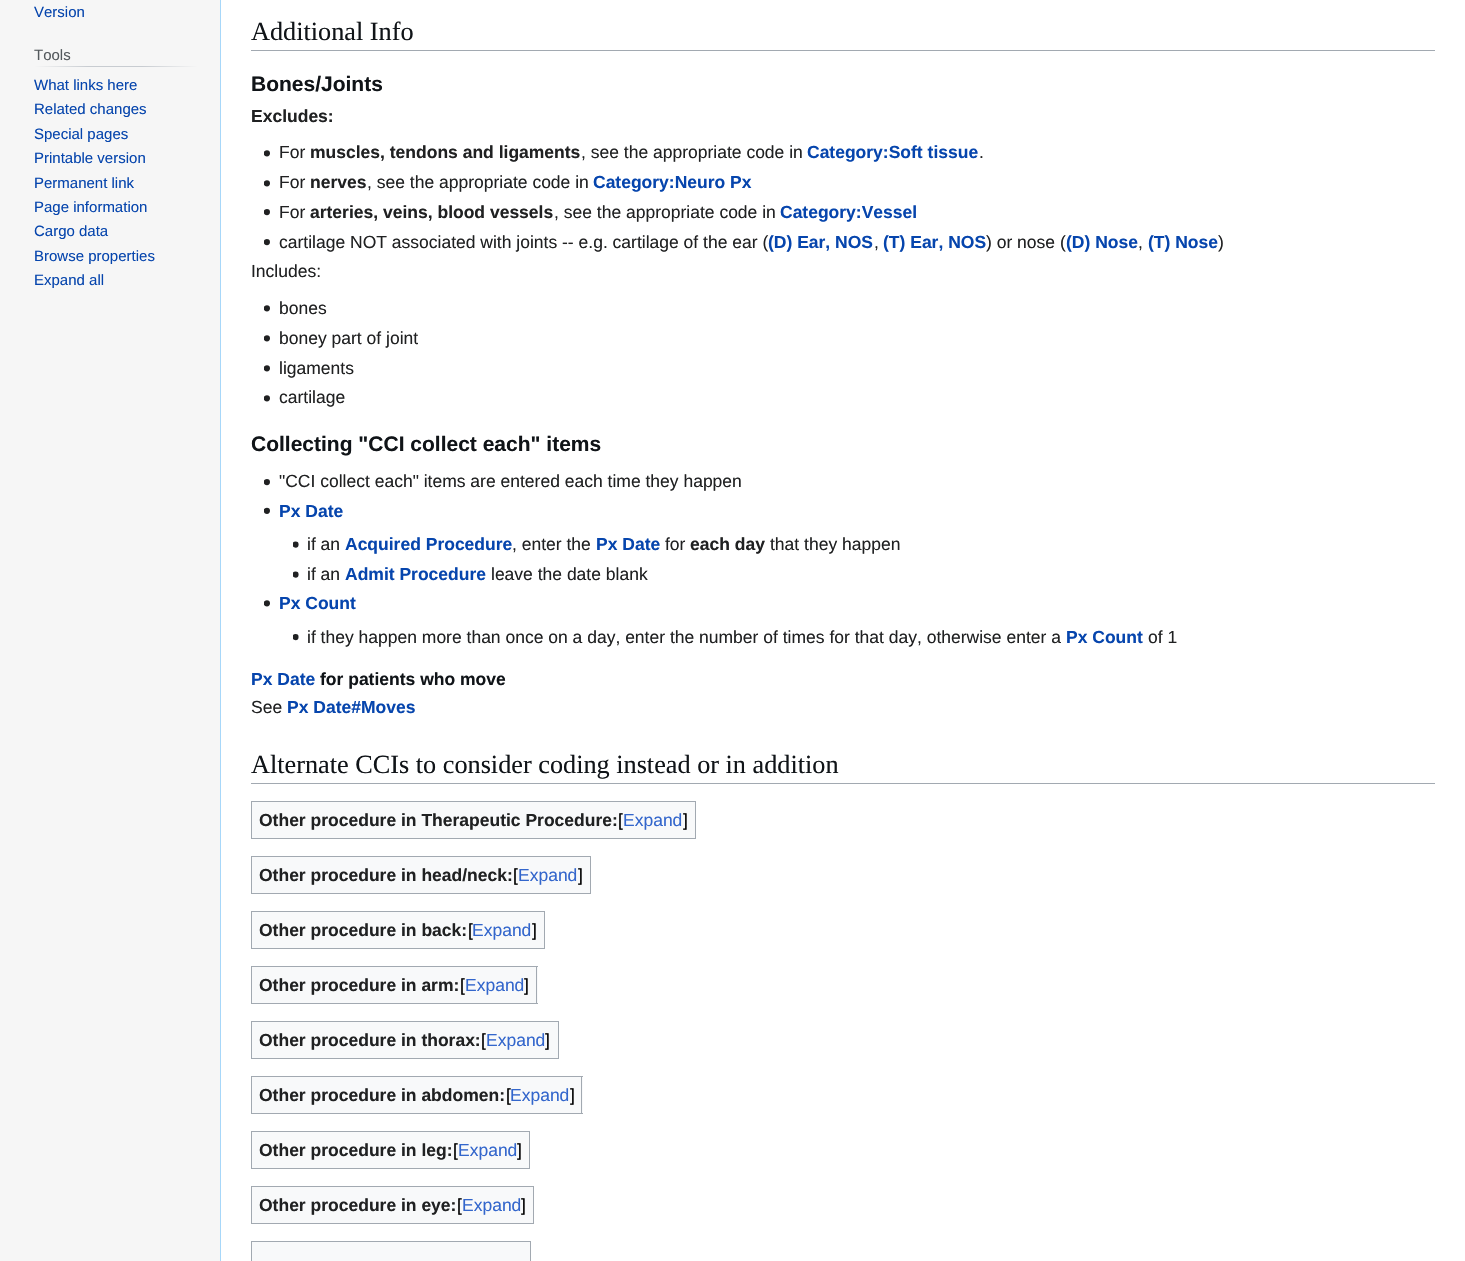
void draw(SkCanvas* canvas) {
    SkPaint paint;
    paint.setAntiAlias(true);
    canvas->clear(0xFFF6F6F6);
    SkFont font1(fontMgr->matchFamilyStyle("Liberation Sans", SkFontStyle::Normal()), 15);
    font1.setSubpixel(true);
    paint.setColor(0xFF0645AD);
    canvas->drawString("Version", 34, 17, font1, paint);
    {
        const SkColor colors[] = {0xFFF6F6F6, 0xFFC8CCD1, 0xFFC8CCD1, 0xFFF6F6F6};
        const float stops[] = {0, 0.33f, 0.66f, 1};
        const SkPoint ends[] = {{34, 67}, {198, 67}};
        paint.setShader(SkGradientShader::MakeLinear(ends, colors, stops, 4, SkTileMode::kClamp));
        paint.setAlpha(255);
    }
    canvas->drawRect(SkRect::MakeXYWH(34, 66, 164, 1), paint);
    paint.setShader(nullptr);
    paint.setColor(0xFF54595D);
    canvas->drawString("Tools", 34, 60, font1, paint);
    paint.setColor(0xFF0645AD);
    canvas->drawString("What links here", 34, 90, font1, paint);
    canvas->drawString("Related changes", 34, 114, font1, paint);
    canvas->drawString("Special pages", 34, 139, font1, paint);
    canvas->drawString("Printable version", 34, 163, font1, paint);
    canvas->drawString("Permanent link", 34, 188, font1, paint);
    canvas->drawString("Page information", 34, 212, font1, paint);
    canvas->drawString("Cargo data", 34, 236, font1, paint);
    canvas->drawString("Browse properties", 34, 261, font1, paint);
    canvas->drawString("Expand all", 34, 285, font1, paint);
    paint.setColor(0xFFFFFFFF);
    canvas->drawRect(SkRect::MakeXYWH(221, 0, 1244, 1261), paint);
    paint.setColor(0xFFA7D7F9);
    canvas->drawRect(SkRect::MakeXYWH(220, 0, 1, 1261), paint);
    paint.setColor(0xFFA2A9B1);
    canvas->drawRect(SkRect::MakeXYWH(251, 50, 1184, 1), paint);
    SkFont font2(fontMgr->matchFamilyStyle("Liberation Serif", SkFontStyle::Normal()), 26.25f);
    font2.setSubpixel(true);
    paint.setColor(0xFF101418);
    canvas->drawString("Additional Info", 251, 40, font2, paint);
    SkFont font3(fontMgr->matchFamilyStyle("Liberation Sans", SkFontStyle::Bold()), 21);
    font3.setSubpixel(true);
    canvas->drawString("Bones/Joints", 251, 91, font3, paint);
    SkFont font4(fontMgr->matchFamilyStyle("Liberation Sans", SkFontStyle::Bold()), 17.5f);
    font4.setSubpixel(true);
    paint.setColor(0xFF202122);
    canvas->drawString("Excludes:", 251, 122, font4, paint);
    canvas->drawImageRect(SkImages::DeferredFromEncodedData(SkData::MakeFromFileName("img1.png")), SkRect::MakeXYWH(264, 150, 6, 7), SkSamplingOptions());
    SkFont font5(fontMgr->matchFamilyStyle("Liberation Sans", SkFontStyle::Normal()), 17.5f);
    font5.setSubpixel(true);
    canvas->drawString("For", 279, 158, font5, paint);
    canvas->drawString("muscles, tendons and ligaments", 310, 158, font4, paint);
    canvas->drawString(", see the appropriate code in", 581, 158, font5, paint);
    paint.setColor(0xFF0645AD);
    canvas->drawString("Category:Soft tissue", 807, 158, font4, paint);
    paint.setColor(0xFF202122);
    canvas->drawString(".", 979, 158, font5, paint);
    canvas->drawImageRect(SkImages::DeferredFromEncodedData(SkData::MakeFromFileName("img1.png")), SkRect::MakeXYWH(264, 180, 6, 7), SkSamplingOptions());
    canvas->drawString("For", 279, 188, font5, paint);
    canvas->drawString("nerves", 310, 188, font4, paint);
    canvas->drawString(", see the appropriate code in", 367, 188, font5, paint);
    paint.setColor(0xFF0645AD);
    canvas->drawString("Category:Neuro Px", 593, 188, font4, paint);
    canvas->drawImageRect(SkImages::DeferredFromEncodedData(SkData::MakeFromFileName("img2.png")), SkRect::MakeXYWH(264, 209, 6, 7), SkSamplingOptions());
    paint.setColor(0xFF202122);
    canvas->drawString("For", 279, 218, font5, paint);
    canvas->drawString("arteries, veins, blood vessels", 310, 218, font4, paint);
    canvas->drawString(", see the appropriate code in", 554, 218, font5, paint);
    paint.setColor(0xFF0645AD);
    canvas->drawString("Category:Vessel", 780, 218, font4, paint);
    canvas->drawImageRect(SkImages::DeferredFromEncodedData(SkData::MakeFromFileName("img3.png")), SkRect::MakeXYWH(264, 239, 6, 7), SkSamplingOptions());
    paint.setColor(0xFF202122);
    canvas->drawString("cartilage NOT associated with joints -- e.g. cartilage of the ear (", 279, 248, font5, paint);
    paint.setColor(0xFF0645AD);
    canvas->drawString("(D) Ear, NOS", 768, 248, font4, paint);
    paint.setColor(0xFF202122);
    canvas->drawString(",", 874, 248, font5, paint);
    paint.setColor(0xFF0645AD);
    canvas->drawString("(T) Ear, NOS", 883, 248, font4, paint);
    paint.setColor(0xFF202122);
    canvas->drawString(") or nose (", 986, 248, font5, paint);
    paint.setColor(0xFF0645AD);
    canvas->drawString("(D) Nose", 1066, 248, font4, paint);
    paint.setColor(0xFF202122);
    canvas->drawString(",", 1138, 248, font5, paint);
    paint.setColor(0xFF0645AD);
    canvas->drawString("(T) Nose", 1148, 248, font4, paint);
    paint.setColor(0xFF202122);
    canvas->drawString(")", 1218, 248, font5, paint);
    canvas->drawString("Includes:", 251, 277, font5, paint);
    canvas->drawImageRect(SkImages::DeferredFromEncodedData(SkData::MakeFromFileName("img1.png")), SkRect::MakeXYWH(264, 305, 6, 7), SkSamplingOptions());
    canvas->drawString("bones", 279, 314, font5, paint);
    canvas->drawImageRect(SkImages::DeferredFromEncodedData(SkData::MakeFromFileName("img1.png")), SkRect::MakeXYWH(264, 335, 6, 7), SkSamplingOptions());
    canvas->drawString("boney part of joint", 279, 344, font5, paint);
    canvas->drawImageRect(SkImages::DeferredFromEncodedData(SkData::MakeFromFileName("img1.png")), SkRect::MakeXYWH(264, 365, 6, 7), SkSamplingOptions());
    canvas->drawString("ligaments", 279, 374, font5, paint);
    canvas->drawImageRect(SkImages::DeferredFromEncodedData(SkData::MakeFromFileName("img1.png")), SkRect::MakeXYWH(264, 395, 6, 7), SkSamplingOptions());
    canvas->drawString("cartilage", 279, 403, font5, paint);
    paint.setColor(0xFF101418);
    canvas->drawString("Collecting \"CCI collect each\" items", 251, 451, font3, paint);
    canvas->drawImageRect(SkImages::DeferredFromEncodedData(SkData::MakeFromFileName("img2.png")), SkRect::MakeXYWH(264, 479, 6, 7), SkSamplingOptions());
    paint.setColor(0xFF202122);
    canvas->drawString("\"CCI collect each\" items are entered each time they happen", 279, 487, font5, paint);
    canvas->drawImageRect(SkImages::DeferredFromEncodedData(SkData::MakeFromFileName("img4.png")), SkRect::MakeXYWH(264, 507, 6, 7), SkSamplingOptions());
    paint.setColor(0xFF0645AD);
    canvas->drawString("Px Date", 279, 517, font4, paint);
    canvas->drawImageRect(SkImages::DeferredFromEncodedData(SkData::MakeFromFileName("img5.png")), SkRect::MakeXYWH(293, 541, 6, 7), SkSamplingOptions());
    paint.setColor(0xFF202122);
    canvas->drawString("if an", 307, 550, font5, paint);
    paint.setColor(0xFF0645AD);
    canvas->drawString("Acquired Procedure", 345, 550, font4, paint);
    paint.setColor(0xFF202122);
    canvas->drawString(", enter the", 512, 550, font5, paint);
    paint.setColor(0xFF0645AD);
    canvas->drawString("Px Date", 596, 550, font4, paint);
    paint.setColor(0xFF202122);
    canvas->drawString("for", 665, 550, font5, paint);
    canvas->drawString("each day", 690, 550, font4, paint);
    canvas->drawString("that they happen", 770, 550, font5, paint);
    canvas->drawImageRect(SkImages::DeferredFromEncodedData(SkData::MakeFromFileName("img5.png")), SkRect::MakeXYWH(293, 571, 6, 7), SkSamplingOptions());
    canvas->drawString("if an", 307, 580, font5, paint);
    paint.setColor(0xFF0645AD);
    canvas->drawString("Admit Procedure", 345, 580, font4, paint);
    paint.setColor(0xFF202122);
    canvas->drawString("leave the date blank", 491, 580, font5, paint);
    canvas->drawImageRect(SkImages::DeferredFromEncodedData(SkData::MakeFromFileName("img1.png")), SkRect::MakeXYWH(264, 600, 6, 7), SkSamplingOptions());
    paint.setColor(0xFF0645AD);
    canvas->drawString("Px Count", 279, 609, font4, paint);
    canvas->drawImageRect(SkImages::DeferredFromEncodedData(SkData::MakeFromFileName("img6.png")), SkRect::MakeXYWH(293, 634, 6, 7), SkSamplingOptions());
    paint.setColor(0xFF202122);
    canvas->drawString("if they happen more than once on a day, enter the number of times for that day, otherwise enter a", 307, 643, font5, paint);
    paint.setColor(0xFF0645AD);
    canvas->drawString("Px Count", 1066, 643, font4, paint);
    paint.setColor(0xFF202122);
    canvas->drawString("of 1", 1148, 643, font5, paint);
    paint.setColor(0xFF0645AD);
    canvas->drawString("Px Date", 251, 685, font4, paint);
    paint.setColor(0xFF101418);
    canvas->drawString("for patients who move", 320, 685, font4, paint);
    paint.setColor(0xFF202122);
    canvas->drawString("See", 251, 713, font5, paint);
    paint.setColor(0xFF0645AD);
    canvas->drawString("Px Date#Moves", 287, 713, font4, paint);
    paint.setColor(0xFFA2A9B1);
    canvas->drawRect(SkRect::MakeXYWH(251, 783, 1184, 1), paint);
    paint.setColor(0xFF101418);
    canvas->drawString("Alternate CCIs to consider coding instead or in addition", 251, 773, font2, paint);
    paint.setColor(0xFFF8F9FA);
    canvas->drawRect(SkRect::MakeXYWH(252, 802, 443, 36), paint);
    paint.setColor(0xFFA2A9B1);
    canvas->drawRect(SkRect::MakeXYWH(251, 801, 445, 1), paint);
    canvas->drawRect(SkRect::MakeXYWH(695, 801, 1, 38), paint);
    canvas->drawRect(SkRect::MakeXYWH(251, 838, 445, 1), paint);
    canvas->drawRect(SkRect::MakeXYWH(251, 801, 1, 38), paint);
    paint.setColor(0xFF202122);
    canvas->drawString("Other procedure in Therapeutic Procedure:", 259, 826, font4, paint);
    paint.setColor(0xFF000000);
    canvas->drawString("[", 618, 826, font5, paint);
    paint.setColor(0xFF3366CC);
    canvas->drawString("Expand", 623, 826, font5, paint);
    paint.setColor(0xFF000000);
    canvas->drawString("]", 683, 826, font5, paint);
    paint.setColor(0xFFF8F9FA);
    canvas->drawRect(SkRect::MakeXYWH(252, 857, 338, 36), paint);
    paint.setColor(0xFFA2A9B1);
    canvas->drawRect(SkRect::MakeXYWH(251, 856, 340, 1), paint);
    canvas->drawRect(SkRect::MakeXYWH(590, 856, 1, 38), paint);
    canvas->drawRect(SkRect::MakeXYWH(251, 893, 340, 1), paint);
    canvas->drawRect(SkRect::MakeXYWH(251, 856, 1, 38), paint);
    paint.setColor(0xFF202122);
    canvas->drawString("Other procedure in head/neck:", 259, 881, font4, paint);
    paint.setColor(0xFF000000);
    canvas->drawString("[", 513, 881, font5, paint);
    paint.setColor(0xFF3366CC);
    canvas->drawString("Expand", 518, 881, font5, paint);
    paint.setColor(0xFF000000);
    canvas->drawString("]", 578, 881, font5, paint);
    paint.setColor(0xFFF8F9FA);
    canvas->drawRect(SkRect::MakeXYWH(252, 912, 292, 36), paint);
    paint.setColor(0xFFA2A9B1);
    canvas->drawRect(SkRect::MakeXYWH(251, 911, 294, 1), paint);
    canvas->drawRect(SkRect::MakeXYWH(544, 911, 1, 38), paint);
    canvas->drawRect(SkRect::MakeXYWH(251, 948, 294, 1), paint);
    canvas->drawRect(SkRect::MakeXYWH(251, 911, 1, 38), paint);
    paint.setColor(0xFF202122);
    canvas->drawString("Other procedure in back:", 259, 936, font4, paint);
    paint.setColor(0xFF000000);
    canvas->drawString("[", 468, 936, font5, paint);
    paint.setColor(0xFF3366CC);
    canvas->drawString("Expand", 472, 936, font5, paint);
    paint.setColor(0xFF000000);
    canvas->drawString("]", 532, 936, font5, paint);
    paint.setColor(0xFFF8F9FA);
    canvas->drawRect(SkRect::MakeXYWH(252, 967, 286, 36), paint);
    paint.setColor(0xFFA2A9B1);
    canvas->drawRect(SkRect::MakeXYWH(251, 966, 287, 1), paint);
    canvas->drawRect(SkRect::MakeXYWH(536, 966, 1, 38), paint);
    canvas->drawRect(SkRect::MakeXYWH(251, 1003, 287, 1), paint);
    canvas->drawRect(SkRect::MakeXYWH(251, 966, 1, 38), paint);
    paint.setColor(0xFF202122);
    canvas->drawString("Other procedure in arm:", 259, 991, font4, paint);
    paint.setColor(0xFF000000);
    canvas->drawString("[", 460, 991, font5, paint);
    paint.setColor(0xFF3366CC);
    canvas->drawString("Expand", 465, 991, font5, paint);
    paint.setColor(0xFF000000);
    canvas->drawString("]", 524, 991, font5, paint);
    paint.setColor(0xFFF8F9FA);
    canvas->drawRect(SkRect::MakeXYWH(252, 1022, 306, 36), paint);
    paint.setColor(0xFFA2A9B1);
    canvas->drawRect(SkRect::MakeXYWH(251, 1021, 308, 1), paint);
    canvas->drawRect(SkRect::MakeXYWH(558, 1021, 1, 38), paint);
    canvas->drawRect(SkRect::MakeXYWH(251, 1058, 308, 1), paint);
    canvas->drawRect(SkRect::MakeXYWH(251, 1021, 1, 38), paint);
    paint.setColor(0xFF202122);
    canvas->drawString("Other procedure in thorax:", 259, 1046, font4, paint);
    paint.setColor(0xFF000000);
    canvas->drawString("[", 481, 1046, font5, paint);
    paint.setColor(0xFF3366CC);
    canvas->drawString("Expand", 486, 1046, font5, paint);
    paint.setColor(0xFF000000);
    canvas->drawString("]", 545, 1046, font5, paint);
    paint.setColor(0xFFF8F9FA);
    canvas->drawRect(SkRect::MakeXYWH(252, 1077, 331, 36), paint);
    paint.setColor(0xFFA2A9B1);
    canvas->drawRect(SkRect::MakeXYWH(251, 1076, 332, 1), paint);
    canvas->drawRect(SkRect::MakeXYWH(581, 1076, 1, 38), paint);
    canvas->drawRect(SkRect::MakeXYWH(251, 1113, 332, 1), paint);
    canvas->drawRect(SkRect::MakeXYWH(251, 1076, 1, 38), paint);
    paint.setColor(0xFF202122);
    canvas->drawString("Other procedure in abdomen:", 259, 1101, font4, paint);
    paint.setColor(0xFF000000);
    canvas->drawString("[", 506, 1101, font5, paint);
    paint.setColor(0xFF3366CC);
    canvas->drawString("Expand", 510, 1101, font5, paint);
    paint.setColor(0xFF000000);
    canvas->drawString("]", 570, 1101, font5, paint);
    paint.setColor(0xFFF8F9FA);
    canvas->drawRect(SkRect::MakeXYWH(252, 1132, 277, 36), paint);
    paint.setColor(0xFFA2A9B1);
    canvas->drawRect(SkRect::MakeXYWH(251, 1131, 279, 1), paint);
    canvas->drawRect(SkRect::MakeXYWH(529, 1131, 1, 38), paint);
    canvas->drawRect(SkRect::MakeXYWH(251, 1168, 279, 1), paint);
    canvas->drawRect(SkRect::MakeXYWH(251, 1131, 1, 38), paint);
    paint.setColor(0xFF202122);
    canvas->drawString("Other procedure in leg:", 259, 1156, font4, paint);
    paint.setColor(0xFF000000);
    canvas->drawString("[", 453, 1156, font5, paint);
    paint.setColor(0xFF3366CC);
    canvas->drawString("Expand", 458, 1156, font5, paint);
    paint.setColor(0xFF000000);
    canvas->drawString("]", 517, 1156, font5, paint);
    paint.setColor(0xFFF8F9FA);
    canvas->drawRect(SkRect::MakeXYWH(252, 1187, 281, 36), paint);
    paint.setColor(0xFFA2A9B1);
    canvas->drawRect(SkRect::MakeXYWH(251, 1186, 283, 1), paint);
    canvas->drawRect(SkRect::MakeXYWH(533, 1186, 1, 38), paint);
    canvas->drawRect(SkRect::MakeXYWH(251, 1223, 283, 1), paint);
    canvas->drawRect(SkRect::MakeXYWH(251, 1186, 1, 38), paint);
    paint.setColor(0xFF202122);
    canvas->drawString("Other procedure in eye:", 259, 1211, font4, paint);
    paint.setColor(0xFF000000);
    canvas->drawString("[", 457, 1211, font5, paint);
    paint.setColor(0xFF3366CC);
    canvas->drawString("Expand", 462, 1211, font5, paint);
    paint.setColor(0xFF000000);
    canvas->drawString("]", 521, 1211, font5, paint);
    paint.setColor(0xFFF8F9FA);
    canvas->drawRect(SkRect::MakeXYWH(252, 1242, 278, 19), paint);
    paint.setColor(0xFFA2A9B1);
    canvas->drawRect(SkRect::MakeXYWH(251, 1241, 280, 1), paint);
    canvas->drawRect(SkRect::MakeXYWH(530, 1241, 1, 20), paint);
    canvas->drawRect(SkRect::MakeXYWH(251, 1241, 1, 20), paint);
}
